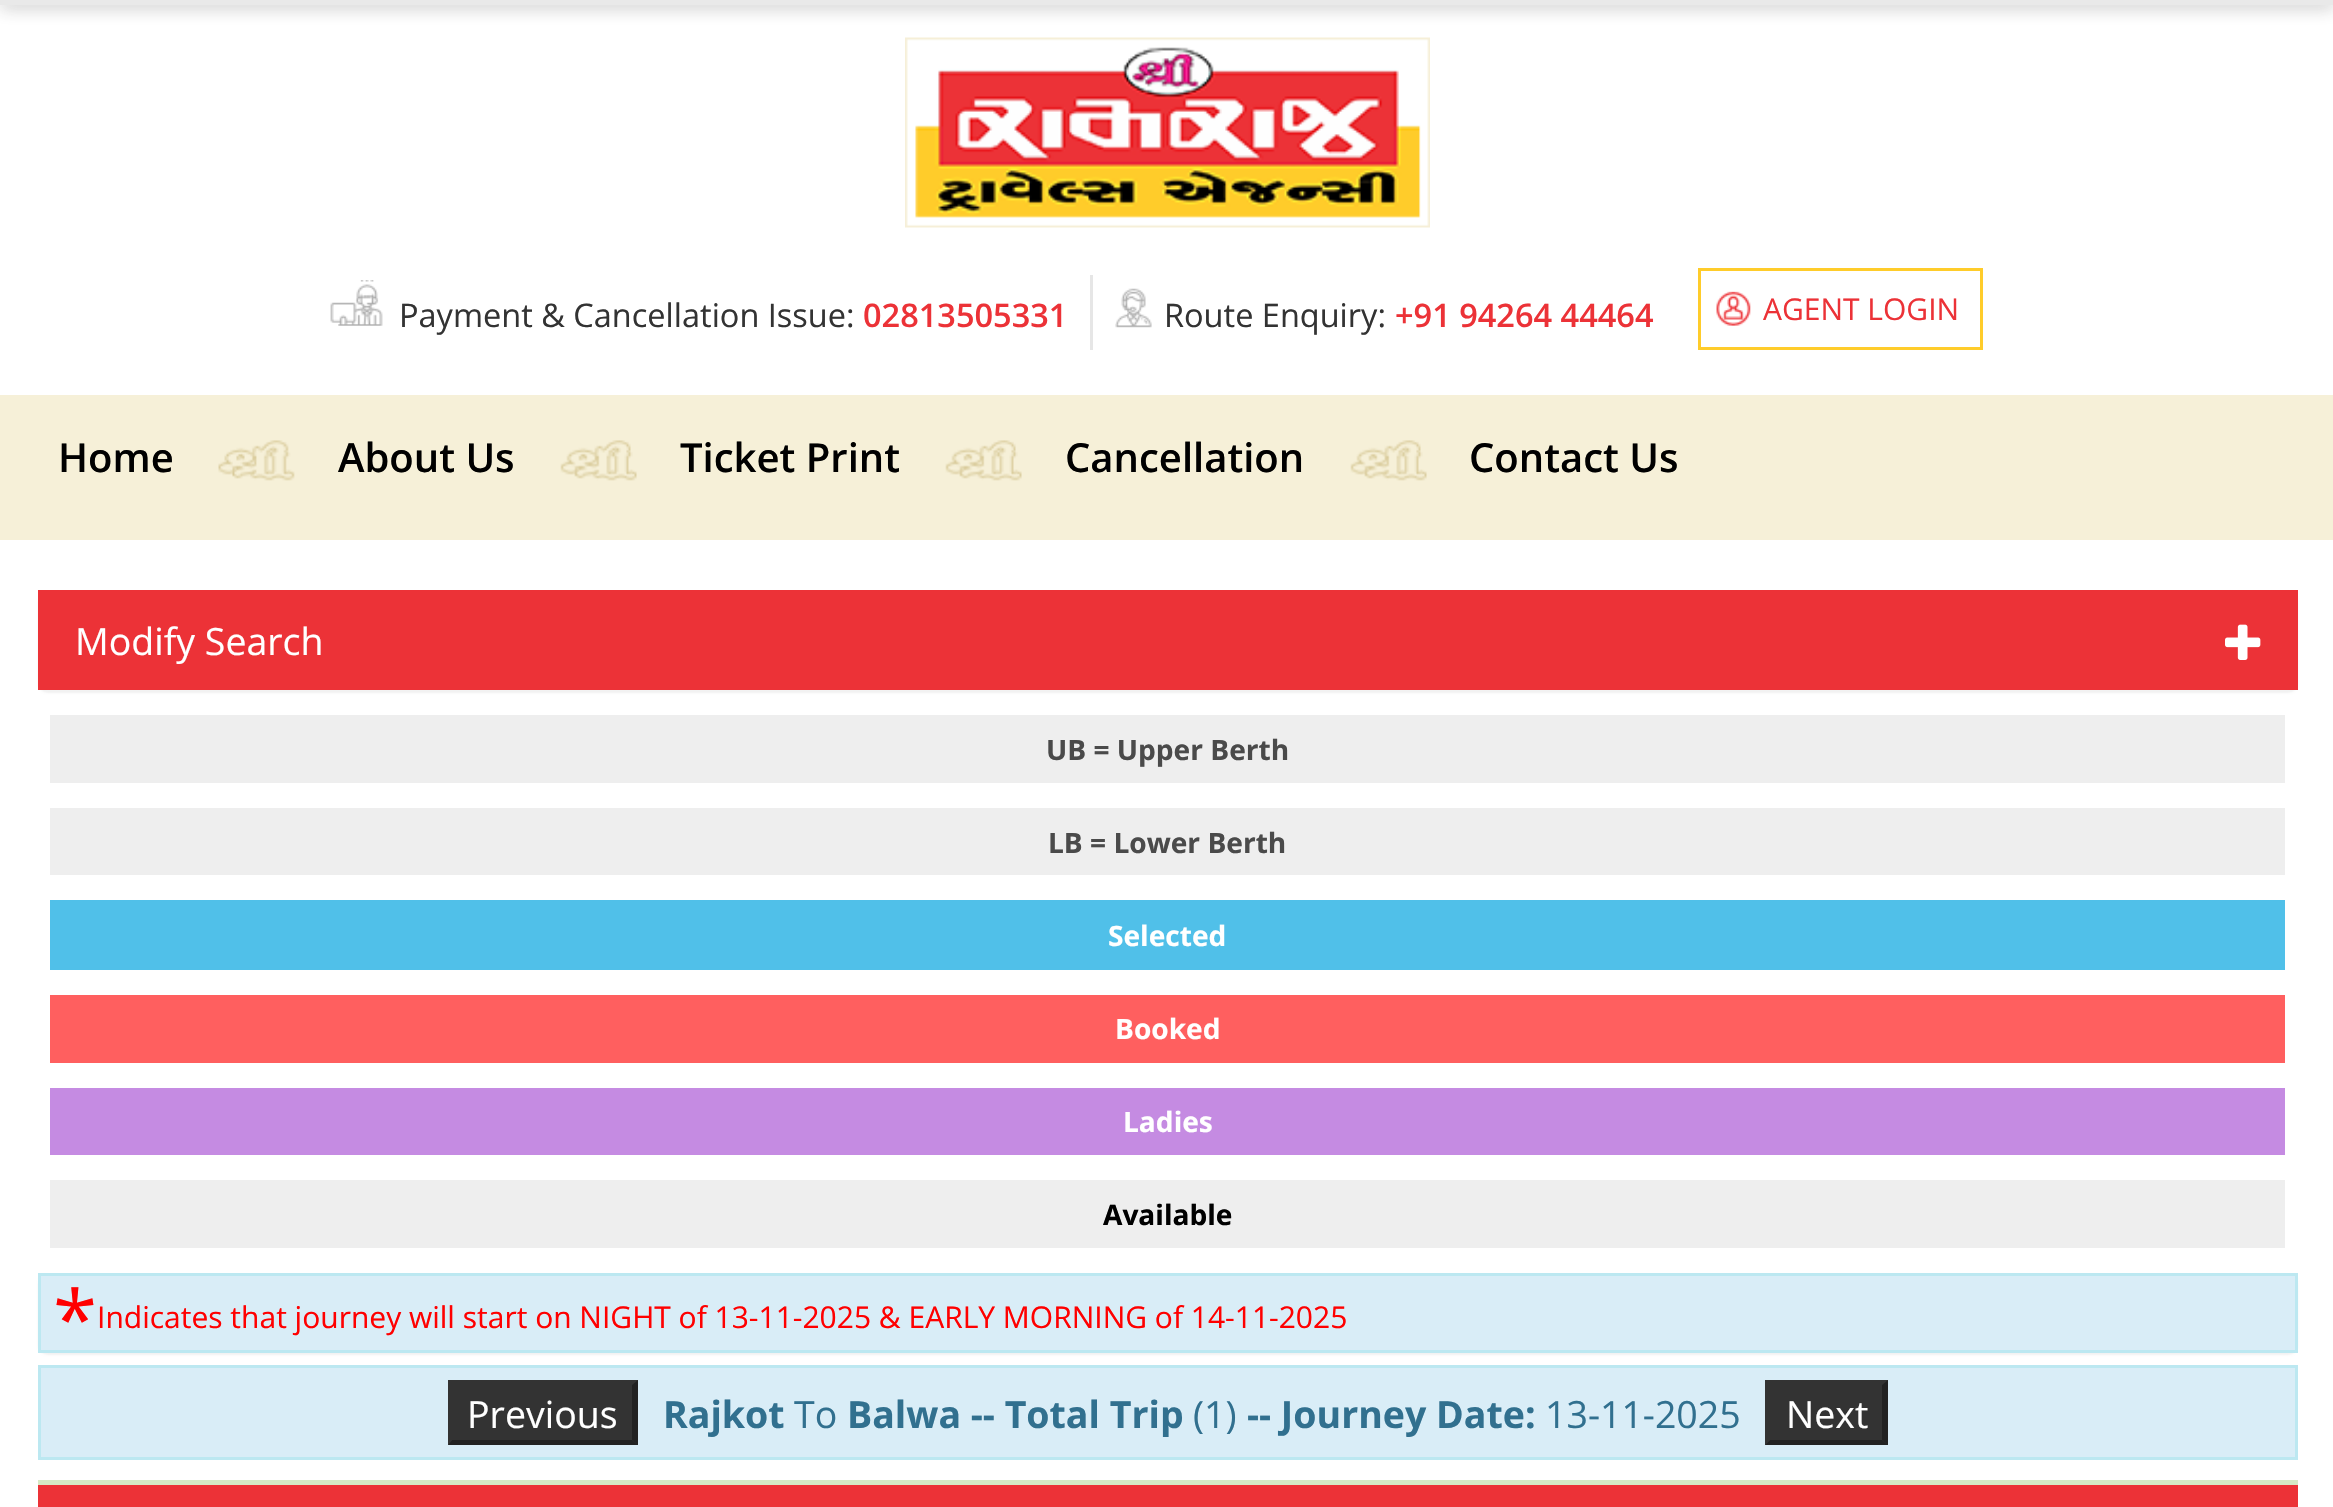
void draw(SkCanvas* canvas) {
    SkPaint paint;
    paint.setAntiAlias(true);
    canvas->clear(0xFFFFFFFF);
    paint.setColor(0x99272727);
    paint.setMaskFilter(SkMaskFilter::MakeBlur(kNormal_SkBlurStyle, 9));
    canvas->drawRect(SkRect::MakeXYWH(0, 0, 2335, 5), paint);
    paint.setMaskFilter(nullptr);
    paint.setColor(0xFFE9E9E9);
    canvas->drawRect(SkRect::MakeXYWH(0, 0, 2333, 5), paint);
    canvas->drawImageRect(SkImages::DeferredFromEncodedData(SkData::MakeFromFileName("img1.png")), SkRect::MakeXYWH(905, 37, 525, 191), SkSamplingOptions());
    canvas->drawImageRect(SkImages::DeferredFromEncodedData(SkData::MakeFromFileName("img2.png")), SkRect::MakeXYWH(330, 280, 53, 46), SkSamplingOptions());
    SkFont font1(fontMgr->matchFamilyStyle("Open Sans", SkFontStyle::Normal()), 32.5f);
    font1.setSubpixel(true);
    paint.setColor(0xFF333333);
    canvas->drawString("Payment & Cancellation Issue:", 399, 327, font1, paint);
    SkFont font2(fontMgr->matchFamilyStyle("Open Sans", SkFontStyle(600, SkFontStyle::kNormal_Width, SkFontStyle::kUpright_Slant)), 32.5f);
    font2.setSubpixel(true);
    paint.setColor(0xFFEC3237);
    canvas->drawString("02813505331", 863, 327, font2, paint);
    canvas->drawImageRect(SkImages::DeferredFromEncodedData(SkData::MakeFromFileName("img3.png")), SkRect::MakeXYWH(1115, 288, 37, 40), SkSamplingOptions());
    paint.setColor(0xFFE6E6E6);
    canvas->drawRect(SkRect::MakeXYWH(1090, 275, 3, 75), paint);
    paint.setColor(0xFF333333);
    canvas->drawString("Route Enquiry:", 1164, 327, font1, paint);
    paint.setColor(0xFFEC3237);
    canvas->drawString("+91 94264 44464", 1395, 327, font2, paint);
    canvas->drawImageRect(SkImages::DeferredFromEncodedData(SkData::MakeFromFileName("img4.png")), SkRect::MakeXYWH(1716, 291, 35, 35), SkSamplingOptions());
    paint.setStyle(SkPaint::kStroke_Style);
    paint.setStrokeWidth(3);
    paint.setColor(0xFFFFCC2A);
    canvas->drawRect(SkRect::MakeXYWH(1699.5f, 269.5f, 282, 79), paint);
    SkFont font3(fontMgr->matchFamilyStyle("Open Sans", SkFontStyle::Normal()), 30);
    font3.setSubpixel(true);
    paint.setStyle(SkPaint::kFill_Style);
    paint.setColor(0xFFEC3237);
    canvas->drawString("AGENT LOGIN", 1763, 320, font3, paint);
    paint.setColor(0xFFF6F0D8);
    canvas->drawRect(SkRect::MakeXYWH(0, 395, 2333, 145), paint);
    SkFont font4(fontMgr->matchFamilyStyle("Open Sans", SkFontStyle(600, SkFontStyle::kNormal_Width, SkFontStyle::kUpright_Slant)), 40);
    font4.setSubpixel(true);
    paint.setColor(0xFF000000);
    canvas->drawString("Home", 58, 472, font4, paint);
    canvas->drawImageRect(SkImages::DeferredFromEncodedData(SkData::MakeFromFileName("img5.png")), SkRect::MakeXYWH(218, 440, 77, 41), SkSamplingOptions());
    canvas->drawString("About Us", 338, 472, font4, paint);
    canvas->drawImageRect(SkImages::DeferredFromEncodedData(SkData::MakeFromFileName("img6.png")), SkRect::MakeXYWH(560, 440, 77, 41), SkSamplingOptions());
    canvas->drawString("Ticket Print", 680, 472, font4, paint);
    canvas->drawImageRect(SkImages::DeferredFromEncodedData(SkData::MakeFromFileName("img6.png")), SkRect::MakeXYWH(945, 440, 77, 41), SkSamplingOptions());
    canvas->drawString("Cancellation", 1065, 472, font4, paint);
    canvas->drawImageRect(SkImages::DeferredFromEncodedData(SkData::MakeFromFileName("img6.png")), SkRect::MakeXYWH(1350, 440, 77, 41), SkSamplingOptions());
    canvas->drawString("Contact Us", 1469, 472, font4, paint);
    paint.setColor(0x0D000000);
    paint.setMaskFilter(SkMaskFilter::MakeBlur(kNormal_SkBlurStyle, 1));
    canvas->drawRoundRect(SkRect::MakeXYWH(38, 593, 2260, 100), 10, 10, paint);
    paint.setMaskFilter(nullptr);
    paint.setColor(0xFFEC3237);
    canvas->drawRect(SkRect::MakeXYWH(38, 590, 2260, 100), paint);
    SkFont font5(fontMgr->matchFamilyStyle("Open Sans", SkFontStyle::Normal()), 37.5f);
    font5.setSubpixel(true);
    paint.setColor(0xFFFFFFFF);
    canvas->drawString("Modify Search", 75, 655, font5, paint);
    canvas->drawImageRect(SkImages::DeferredFromEncodedData(SkData::MakeFromFileName("img7.png")), SkRect::MakeXYWH(2225, 624, 36, 36), SkSamplingOptions());
    paint.setColor(0xFFEEEEEE);
    canvas->drawRect(SkRect::MakeXYWH(50, 715, 2235, 68), paint);
    SkFont font6(fontMgr->matchFamilyStyle("Open Sans", SkFontStyle::Bold()), 28.1f);
    font6.setSubpixel(true);
    paint.setColor(0xFF4A4A4A);
    canvas->drawString("UB = Upper Berth", 1046, 760, font6, paint);
    paint.setColor(0xFFEEEEEE);
    canvas->drawRect(SkRect::MakeXYWH(50, 808, 2235, 67), paint);
    paint.setColor(0xFF4A4A4A);
    canvas->drawString("LB = Lower Berth", 1048, 853, font6, paint);
    paint.setColor(0xFF50C0E9);
    canvas->drawRect(SkRect::MakeXYWH(50, 900, 2235, 70), paint);
    paint.setColor(0xFFFFFFFF);
    canvas->drawString("Selected", 1108, 946, font6, paint);
    paint.setColor(0xFFFF5F5F);
    canvas->drawRect(SkRect::MakeXYWH(50, 995, 2235, 68), paint);
    paint.setColor(0xFFFFFFFF);
    canvas->drawString("Booked", 1115, 1039, font6, paint);
    paint.setColor(0xFFC58BE2);
    canvas->drawRect(SkRect::MakeXYWH(50, 1088, 2235, 67), paint);
    paint.setColor(0xFFFFFFFF);
    canvas->drawString("Ladies", 1123, 1132, font6, paint);
    paint.setColor(0xFFEEEEEE);
    canvas->drawRect(SkRect::MakeXYWH(50, 1180, 2235, 68), paint);
    paint.setColor(0xFF000000);
    canvas->drawString("Available", 1103, 1225, font6, paint);
    paint.setColor(0x0D000000);
    paint.setMaskFilter(SkMaskFilter::MakeBlur(kNormal_SkBlurStyle, 1));
    canvas->drawRoundRect(SkRect::MakeXYWH(38, 1275, 2260, 80), 10, 10, paint);
    paint.setMaskFilter(nullptr);
    paint.setColor(0xFFD9EDF7);
    canvas->drawRect(SkRect::MakeXYWH(39.5f, 1274.5f, 2257, 77), paint);
    paint.setStyle(SkPaint::kStroke_Style);
    paint.setColor(0xFFBCE8F1);
    canvas->drawRect(SkRect::MakeXYWH(39.5f, 1274.5f, 2257, 77), paint);
    SkFont font7(fontMgr->matchFamilyStyle("Open Sans", SkFontStyle::Normal()), 80);
    font7.setSubpixel(true);
    paint.setStyle(SkPaint::kFill_Style);
    paint.setColor(0xFFFF0000);
    canvas->drawString("*", 53, 1348, font7, paint);
    canvas->drawString("Indicates that journey will start on NIGHT of 13-11-2025 & EARLY MORNING of 14-11-2025", 97, 1328, font3, paint);
    paint.setColor(0xFFD9EDF7);
    canvas->drawRect(SkRect::MakeXYWH(39.5f, 1366.5f, 2257, 92), paint);
    paint.setStyle(SkPaint::kStroke_Style);
    paint.setColor(0xFFBCE8F1);
    canvas->drawRect(SkRect::MakeXYWH(39.5f, 1366.5f, 2257, 92), paint);
    paint.setStyle(SkPaint::kFill_Style);
    paint.setColor(0xFF333333);
    canvas->drawRect(SkRect::MakeXYWH(448, 1380, 190, 65), paint);
    paint.setColor(0xFF222222);
    canvas->drawPath(SkPathBuilder().moveTo(638, 1380).lineTo(638, 1445).lineTo(632, 1440).lineTo(632, 1385).close().detach(), paint);
    canvas->drawPath(SkPathBuilder().moveTo(638, 1445).lineTo(448, 1445).lineTo(452, 1440).lineTo(632, 1440).close().detach(), paint);
    paint.setColor(0xFF333333);
    canvas->drawPath(SkPathBuilder().moveTo(448, 1445).lineTo(448, 1380).lineTo(452, 1385).lineTo(452, 1440).close().detach(), paint);
    paint.setColor(0xFFFFFFFF);
    canvas->drawString("Previous", 467, 1428, font5, paint);
    SkFont font8(fontMgr->matchFamilyStyle("Open Sans", SkFontStyle::Bold()), 37.5f);
    font8.setSubpixel(true);
    paint.setColor(0xFF31708F);
    canvas->drawString("Rajkot", 663, 1428, font8, paint);
    canvas->drawString("To", 794, 1428, font5, paint);
    canvas->drawString("Balwa -- Total Trip", 847, 1428, font8, paint);
    canvas->drawString("(1)", 1193, 1428, font5, paint);
    canvas->drawString("-- Journey Date:", 1247, 1428, font8, paint);
    canvas->drawString("13-11-2025", 1545, 1428, font5, paint);
    paint.setColor(0xFF333333);
    canvas->drawRect(SkRect::MakeXYWH(1765, 1380, 123, 65), paint);
    paint.setColor(0xFF222222);
    canvas->drawPath(SkPathBuilder().moveTo(1888, 1380).lineTo(1888, 1445).lineTo(1882, 1440).lineTo(1882, 1385).close().detach(), paint);
    canvas->drawPath(SkPathBuilder().moveTo(1888, 1445).lineTo(1765, 1445).lineTo(1770, 1440).lineTo(1882, 1440).close().detach(), paint);
    paint.setColor(0xFF333333);
    canvas->drawPath(SkPathBuilder().moveTo(1765, 1445).lineTo(1765, 1380).lineTo(1770, 1385).lineTo(1770, 1440).close().detach(), paint);
    paint.setColor(0xFFFFFFFF);
    canvas->drawString("Next", 1786, 1428, font5, paint);
    paint.setColor(0xFFD6E9C6);
    canvas->drawRect(SkRect::MakeXYWH(38, 1480, 2260, 5), paint);
    paint.setColor(0xFFEC3237);
    canvas->drawRect(SkRect::MakeXYWH(38, 1485, 2260, 22), paint);
}
